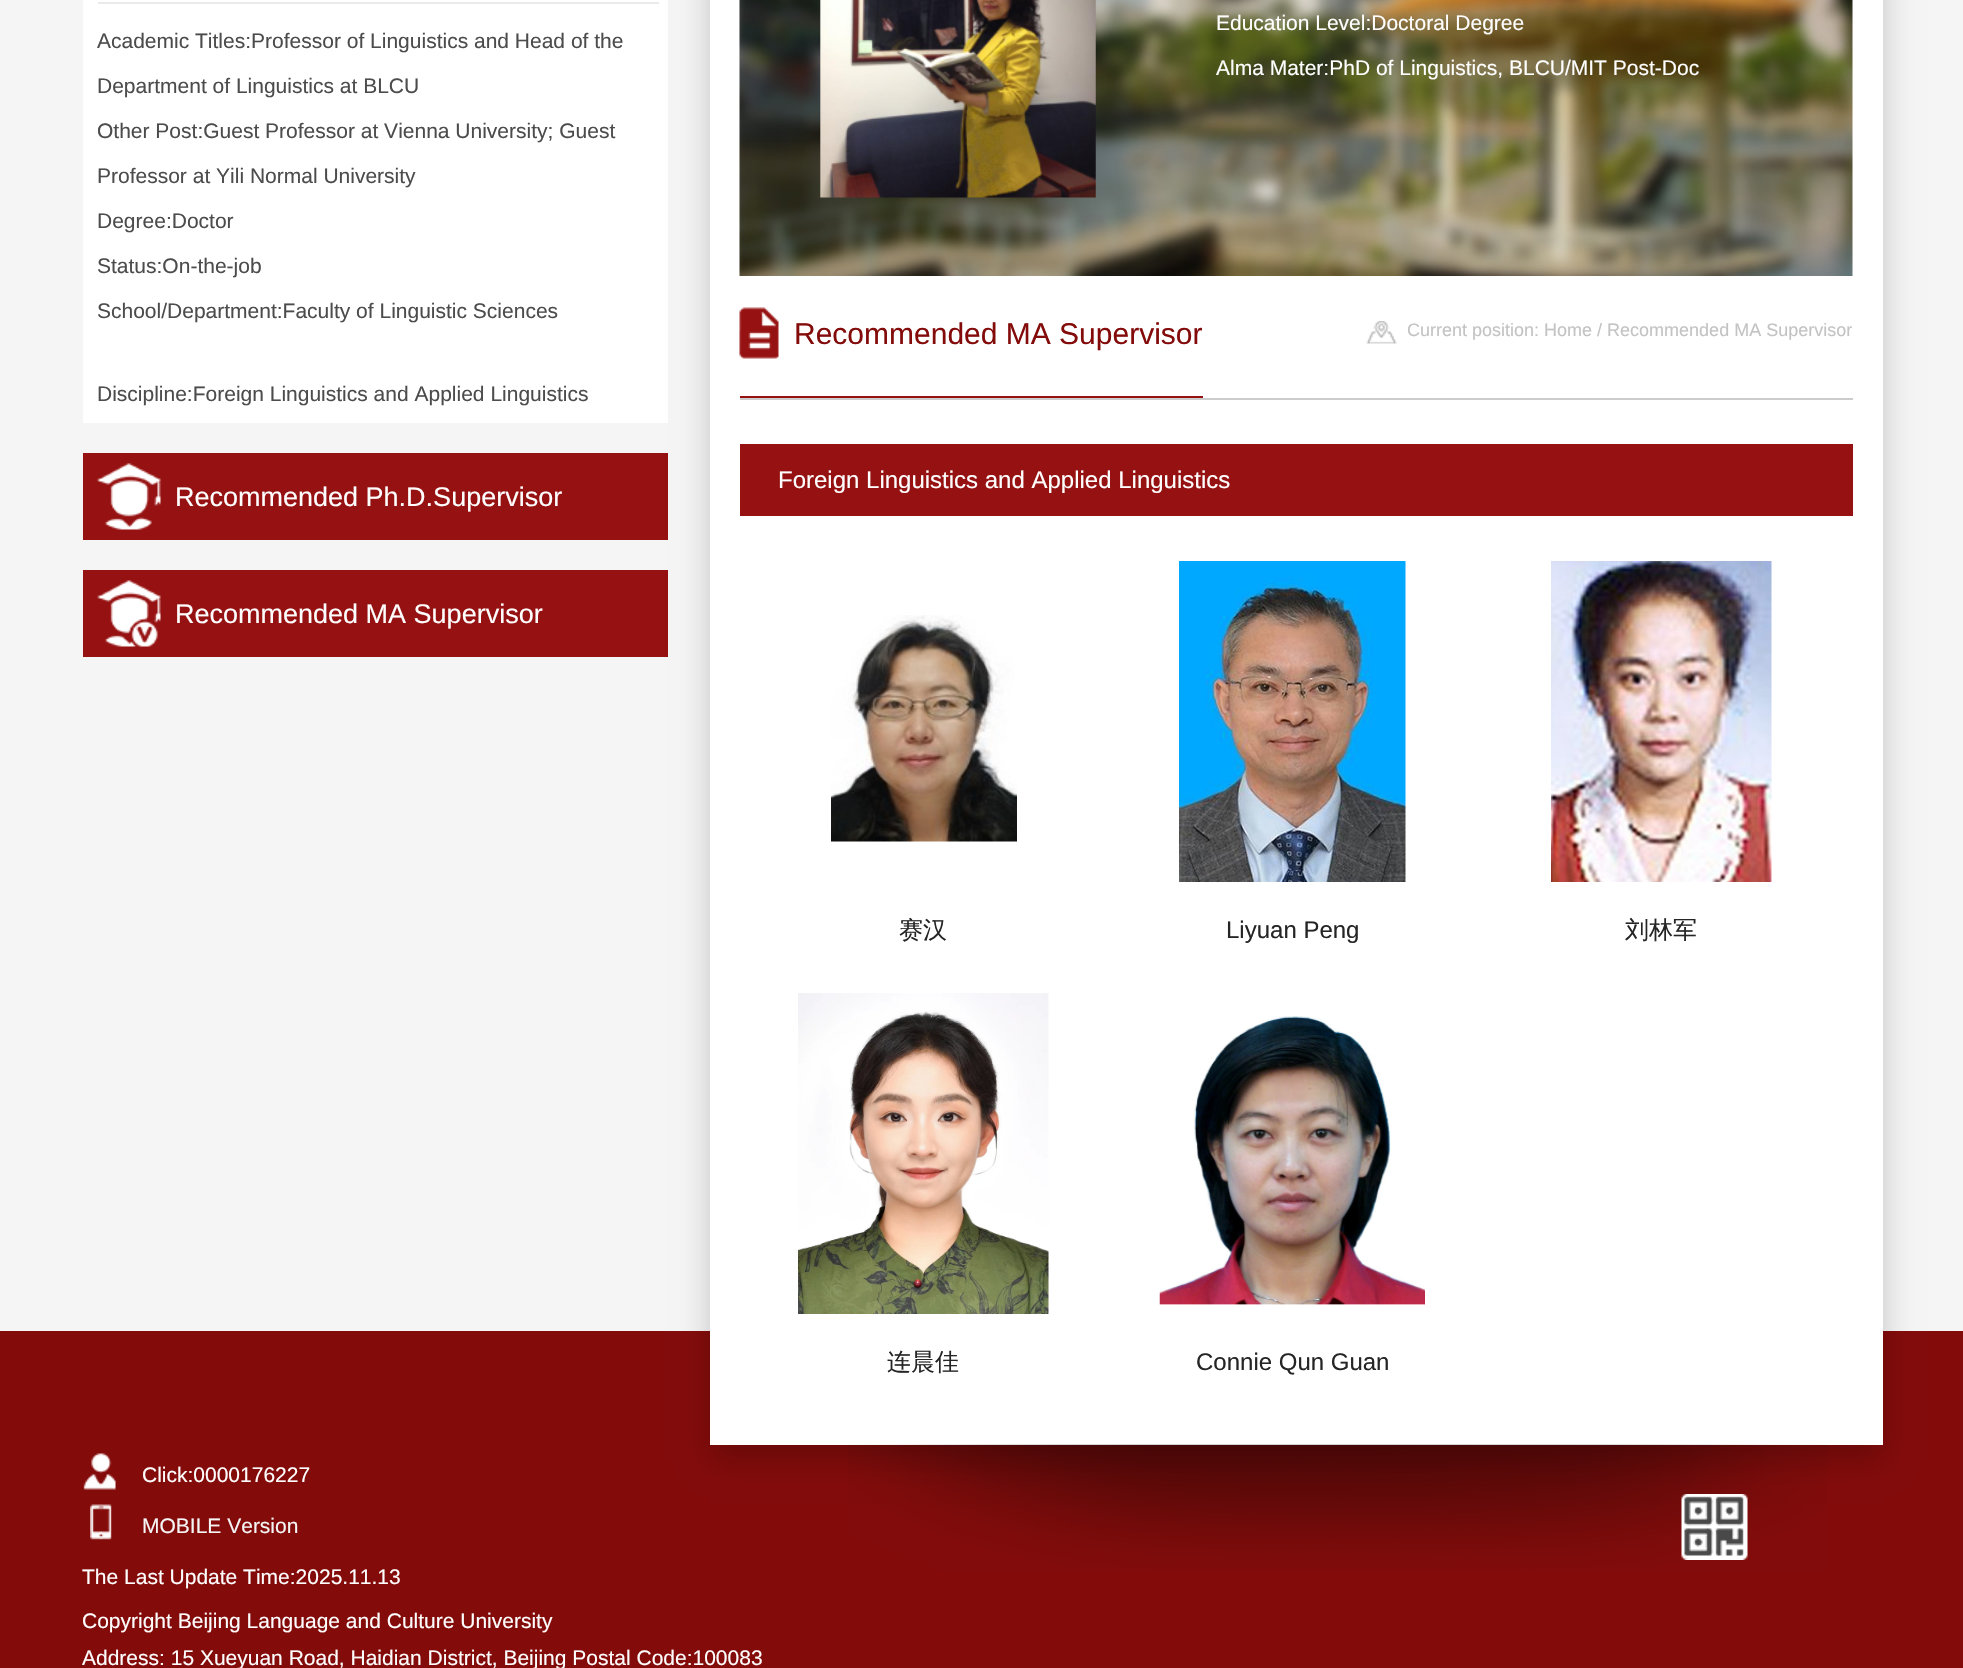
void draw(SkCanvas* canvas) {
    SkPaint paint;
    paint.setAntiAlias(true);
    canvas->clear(0xFFF5F5F5);
    paint.setColor(0xFFFFFFFF);
    canvas->drawRect(SkRect::MakeXYWH(83, 0, 585, 423), paint);
    paint.setColor(0xFFEAEAEA);
    canvas->drawRect(SkRect::MakeXYWH(98, 2, 561, 2), paint);
    SkFont font1(fontMgr->matchFamilyStyle("Liberation Sans", SkFontStyle::Normal()), 21);
    font1.setSubpixel(true);
    paint.setColor(0xFF4C4C4C);
    canvas->drawString("Academic Titles:Professor of Linguistics and Head of the", 97, 48, font1, paint);
    canvas->drawString("Department of Linguistics at BLCU", 97, 93, font1, paint);
    canvas->drawString("Other Post:Guest Professor at Vienna University; Guest", 97, 138, font1, paint);
    canvas->drawString("Professor at Yili Normal University", 97, 183, font1, paint);
    canvas->drawString("Degree:Doctor", 97, 228, font1, paint);
    canvas->drawString("Status:On-the-job", 97, 273, font1, paint);
    canvas->drawString("School/Department:Faculty of Linguistic Sciences", 97, 318, font1, paint);
    canvas->drawString("Discipline:Foreign Linguistics and Applied Linguistics", 97, 401, font1, paint);
    paint.setColor(0xFF961111);
    canvas->drawRect(SkRect::MakeXYWH(83, 453, 585, 87), paint);
    canvas->drawImageRect(SkImages::DeferredFromEncodedData(SkData::MakeFromFileName("img1.png")), SkRect::MakeXYWH(97, 463, 64, 67), SkSamplingOptions());
    SkFont font2(fontMgr->matchFamilyStyle("Liberation Sans", SkFontStyle::Normal()), 27);
    font2.setSubpixel(true);
    paint.setColor(0xFFFFFFFF);
    canvas->drawString("Recommended Ph.D.Supervisor", 175, 506, font2, paint);
    paint.setColor(0xFF961111);
    canvas->drawRect(SkRect::MakeXYWH(83, 570, 585, 87), paint);
    canvas->drawImageRect(SkImages::DeferredFromEncodedData(SkData::MakeFromFileName("img2.png")), SkRect::MakeXYWH(97, 580, 64, 67), SkSamplingOptions());
    paint.setColor(0xFFFFFFFF);
    canvas->drawString("Recommended MA Supervisor", 175, 623, font2, paint);
    paint.setColor(0xFF830C0B);
    canvas->drawRect(SkRect::MakeXYWH(0, 1331, 1963, 337), paint);
    paint.setColor(0x33000000);
    paint.setMaskFilter(SkMaskFilter::MakeBlur(kNormal_SkBlurStyle, 15));
    canvas->drawRect(SkRect::MakeXYWH(710, -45, 1173, 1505), paint);
    paint.setMaskFilter(nullptr);
    paint.setColor(0xFFFFFFFF);
    canvas->drawRect(SkRect::MakeXYWH(710, 0, 1173, 1445), paint);
    canvas->drawImageRect(SkImages::DeferredFromEncodedData(SkData::MakeFromFileName("img3.png")), SkRect::MakeXYWH(739, 0, 1114, 276), SkSamplingOptions());
    canvas->drawImageRect(SkImages::DeferredFromEncodedData(SkData::MakeFromFileName("img4.png")), SkRect::MakeXYWH(820, 0, 276, 198), SkSamplingOptions());
    canvas->drawString("Education Level:Doctoral Degree", 1216, 30, font1, paint);
    canvas->drawString("Alma Mater:PhD of Linguistics, BLCU/MIT Post-Doc", 1216, 75, font1, paint);
    paint.setColor(0xFFCCCCCC);
    canvas->drawRect(SkRect::MakeXYWH(740, 398, 1113, 2), paint);
    paint.setColor(0xFF971111);
    canvas->drawRect(SkRect::MakeXYWH(740, 396, 463, 2), paint);
    canvas->drawImageRect(SkImages::DeferredFromEncodedData(SkData::MakeFromFileName("img5.png")), SkRect::MakeXYWH(739, 307, 40, 52), SkSamplingOptions());
    SkFont font3(fontMgr->matchFamilyStyle("Liberation Sans", SkFontStyle::Normal()), 30);
    font3.setSubpixel(true);
    paint.setColor(0xFF830C0B);
    canvas->drawString("Recommended MA Supervisor", 794, 344, font3, paint);
    canvas->drawImageRect(SkImages::DeferredFromEncodedData(SkData::MakeFromFileName("img6.png")), SkRect::MakeXYWH(1366, 321, 31, 23), SkSamplingOptions());
    SkFont font4(fontMgr->matchFamilyStyle("Liberation Sans", SkFontStyle::Normal()), 18);
    font4.setSubpixel(true);
    paint.setColor(0xFFC3C3C3);
    canvas->drawString("Current position: Home / Recommended MA Supervisor", 1407, 336, font4, paint);
    paint.setColor(0xFF961111);
    canvas->drawRect(SkRect::MakeXYWH(740, 444, 1113, 72), paint);
    SkFont font5(fontMgr->matchFamilyStyle("Liberation Sans", SkFontStyle::Normal()), 24);
    font5.setSubpixel(true);
    paint.setColor(0xFFFFFFFF);
    canvas->drawString("Foreign Linguistics and Applied Linguistics", 778, 488, font5, paint);
    canvas->drawImageRect(SkImages::DeferredFromEncodedData(SkData::MakeFromFileName("img7.png")), SkRect::MakeXYWH(831, 615, 186, 227), SkSamplingOptions());
    SkFont font6(fontMgr->matchFamilyStyle("WenQuanYi Zen Hei", SkFontStyle(500, SkFontStyle::kNormal_Width, SkFontStyle::kUpright_Slant)), 24);
    font6.setSubpixel(true);
    paint.setColor(0xFF252525);
    canvas->drawString("赛汉", 899, 938, font6, paint);
    canvas->drawImageRect(SkImages::DeferredFromEncodedData(SkData::MakeFromFileName("img8.png")), SkRect::MakeXYWH(1179, 561, 227, 321), SkSamplingOptions());
    canvas->drawString("Liyuan Peng", 1226, 938, font5, paint);
    canvas->drawImageRect(SkImages::DeferredFromEncodedData(SkData::MakeFromFileName("img9.png")), SkRect::MakeXYWH(1551, 561, 221, 321), SkSamplingOptions());
    canvas->drawString("刘林军", 1625, 938, font6, paint);
    canvas->drawImageRect(SkImages::DeferredFromEncodedData(SkData::MakeFromFileName("img10.png")), SkRect::MakeXYWH(798, 993, 251, 321), SkSamplingOptions());
    canvas->drawString("连晨佳", 887, 1370, font6, paint);
    canvas->drawImageRect(SkImages::DeferredFromEncodedData(SkData::MakeFromFileName("img11.png")), SkRect::MakeXYWH(1159, 1016, 266, 289), SkSamplingOptions());
    canvas->drawString("Connie Qun Guan", 1196, 1370, font5, paint);
    canvas->drawImageRect(SkImages::DeferredFromEncodedData(SkData::MakeFromFileName("img12.png")), SkRect::MakeXYWH(848, 1444, 980, 127), SkSamplingOptions());
    canvas->drawImageRect(SkImages::DeferredFromEncodedData(SkData::MakeFromFileName("img13.png")), SkRect::MakeXYWH(83, 1453, 33, 37), SkSamplingOptions());
    paint.setColor(0xFFFFFFFF);
    canvas->drawString("Click:0000176227", 142, 1482, font1, paint);
    canvas->drawImageRect(SkImages::DeferredFromEncodedData(SkData::MakeFromFileName("img14.png")), SkRect::MakeXYWH(90, 1504, 22, 36), SkSamplingOptions());
    paint.setColor(0xFFF5F5F5);
    canvas->drawString("MOBILE Version", 142, 1533, font1, paint);
    paint.setColor(0xFFFFFFFF);
    canvas->drawString("The Last Update Time:2025.11.13", 82, 1584, font1, paint);
    canvas->drawString("Copyright Beijing Language and Culture University", 82, 1628, font1, paint);
    canvas->drawString("Address: 15 Xueyuan Road, Haidian District, Beijing Postal Code:100083", 82, 1665, font1, paint);
    canvas->drawImageRect(SkImages::DeferredFromEncodedData(SkData::MakeFromFileName("img15.png")), SkRect::MakeXYWH(1681, 1494, 67, 66), SkSamplingOptions());
}
